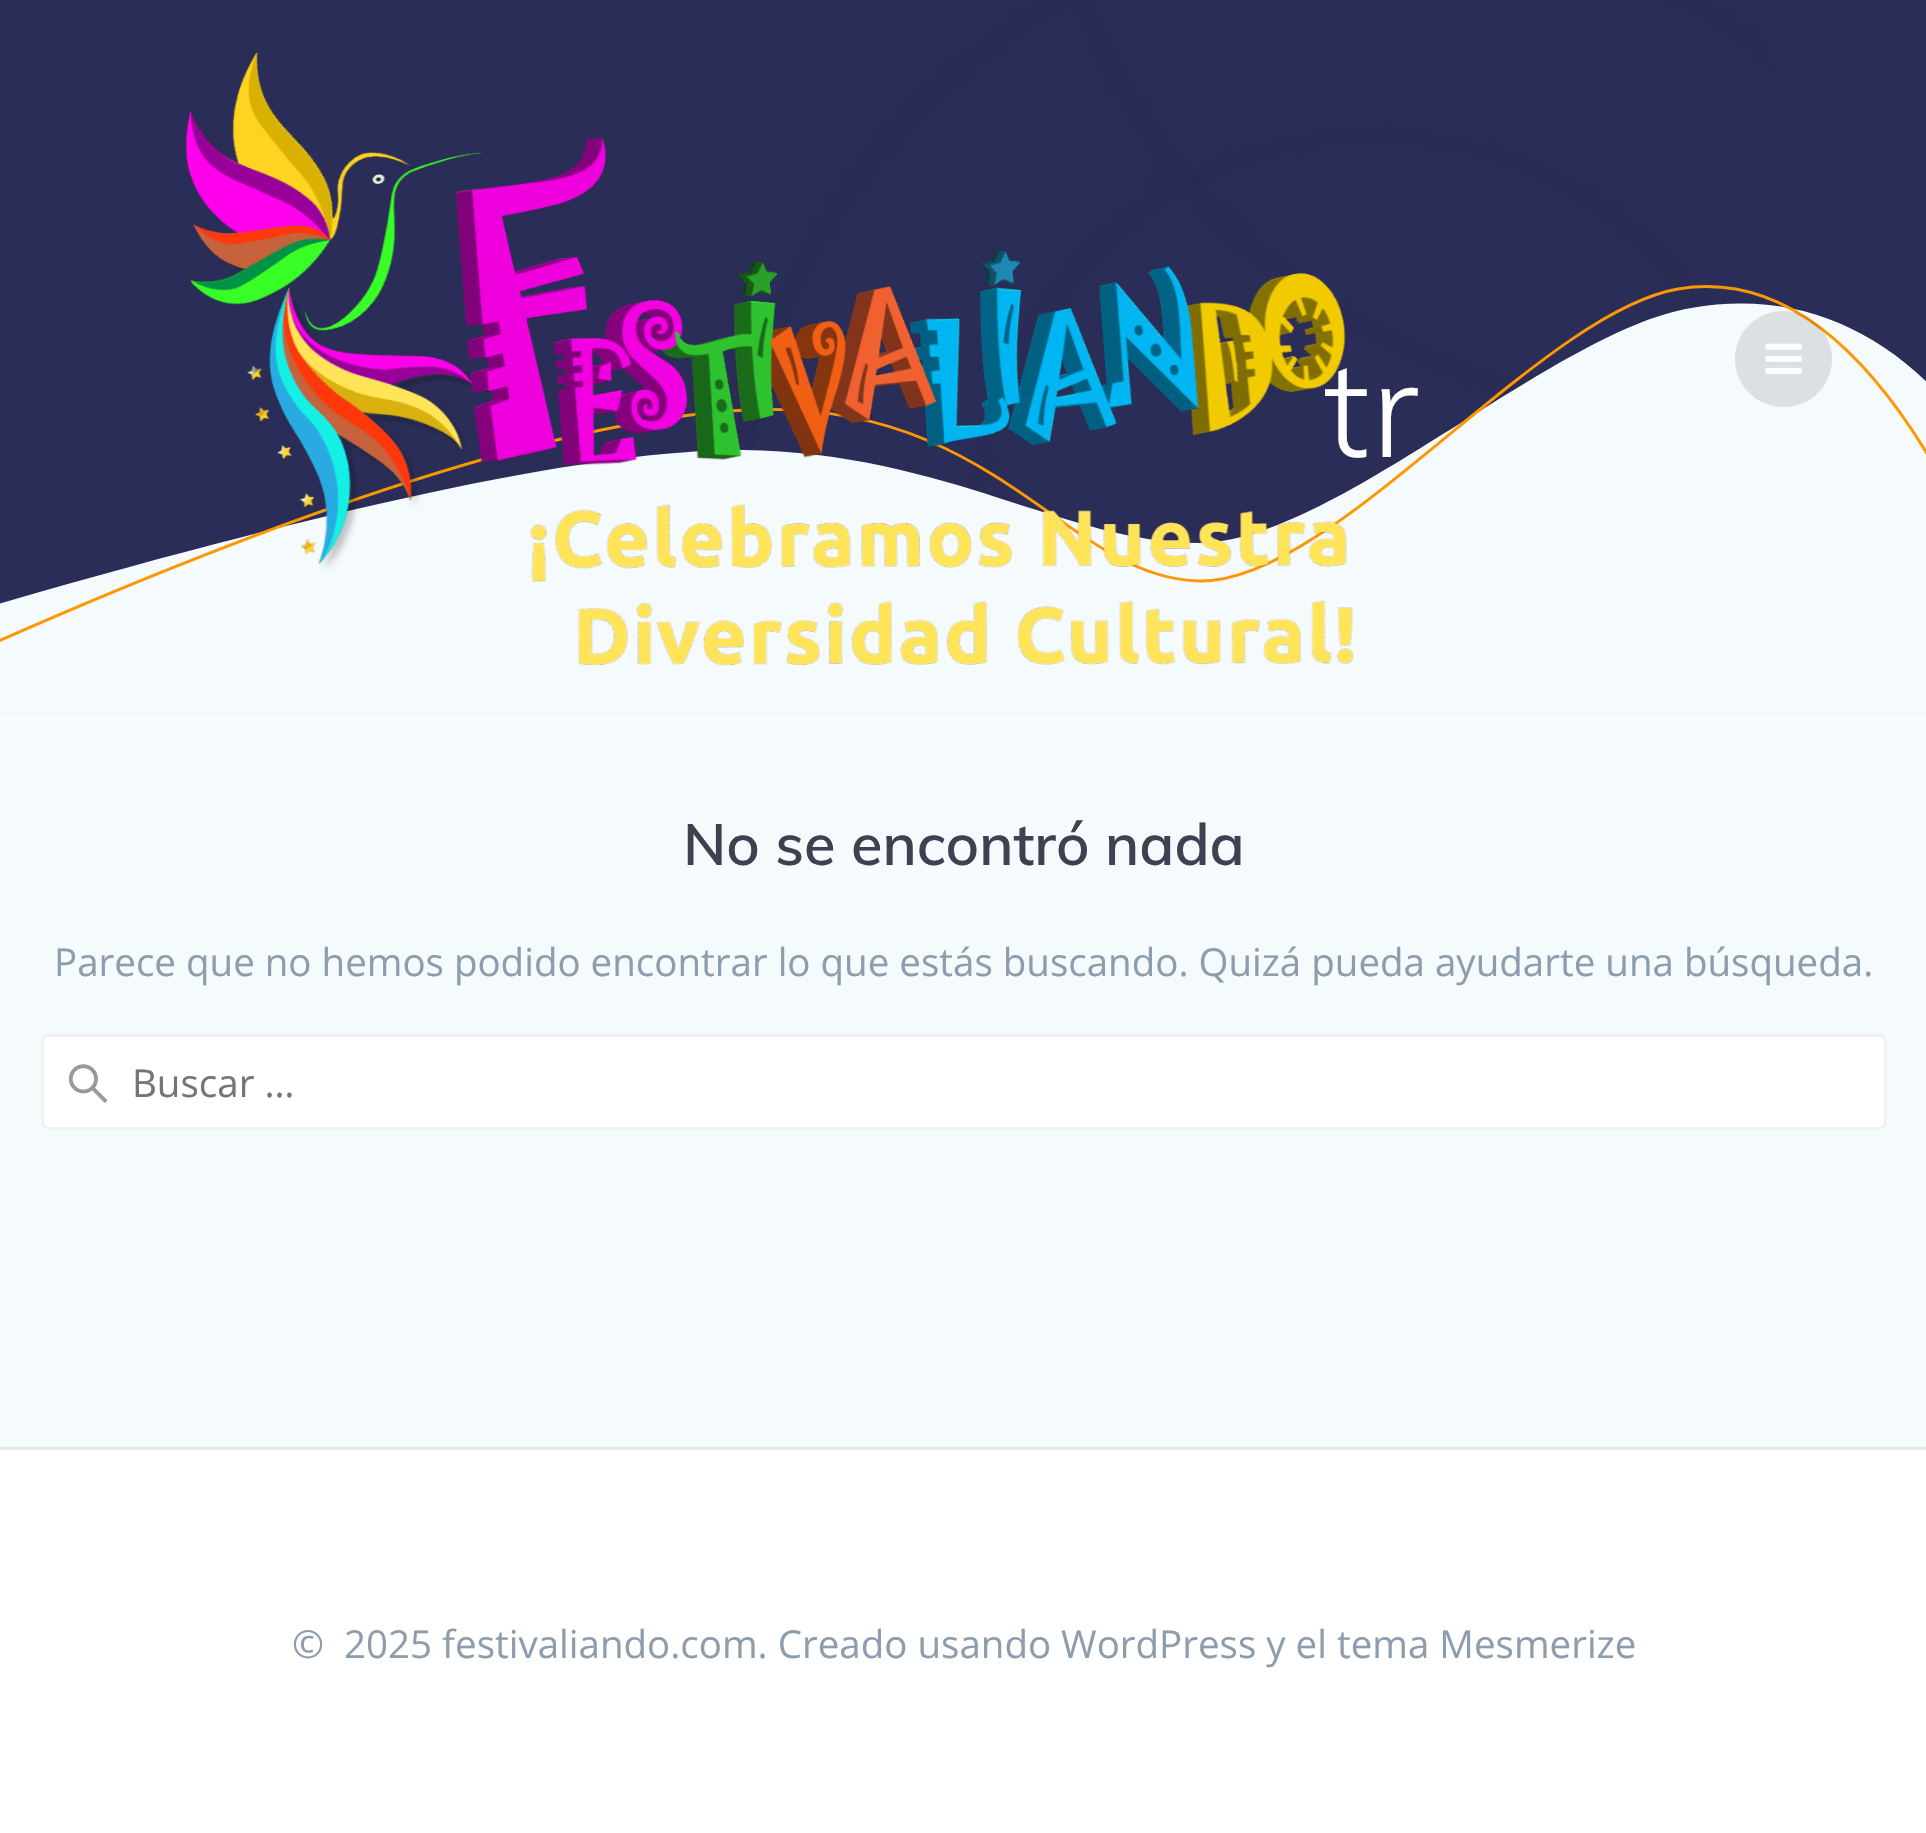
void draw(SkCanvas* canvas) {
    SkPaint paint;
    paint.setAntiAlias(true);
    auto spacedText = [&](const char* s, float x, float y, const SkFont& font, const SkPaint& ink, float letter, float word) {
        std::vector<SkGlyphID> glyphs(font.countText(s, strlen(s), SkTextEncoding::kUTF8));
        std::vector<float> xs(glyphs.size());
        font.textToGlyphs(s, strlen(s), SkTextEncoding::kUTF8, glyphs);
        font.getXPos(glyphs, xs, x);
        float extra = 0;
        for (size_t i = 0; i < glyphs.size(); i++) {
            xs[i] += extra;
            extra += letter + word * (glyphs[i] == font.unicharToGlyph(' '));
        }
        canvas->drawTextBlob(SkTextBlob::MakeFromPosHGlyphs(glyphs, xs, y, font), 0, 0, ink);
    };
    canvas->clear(0xFFFFFFFF);
    paint.setColor(0xFFF5FAFD);
    canvas->drawRect(SkRect::MakeXYWH(0, 693, 1926, 754), paint);
    paint.setColor(0xFFFAFDFE);
    canvas->drawRect(SkRect::MakeXYWH(0, 718, 1926, 3), paint);
    paint.setColor(0xFF2A2D58);
    canvas->drawRect(SkRect::MakeXYWH(0, 0, 1926, 604), paint);
    canvas->drawImageRect(SkImages::DeferredFromEncodedData(SkData::MakeFromFileName("img3.png")), SkRect::MakeXYWH(730, 0, 1041, 495), SkSamplingOptions());
    paint.setColor(0xFFF5FAFD);
    canvas->drawPath(SkPathBuilder().moveTo(-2, 604).cubicTo(357, 500, 606, 449, 743, 450).cubicTo(948, 453, 1066, 543, 1199, 543).cubicTo(1332, 543, 1553, 331, 1691, 308).cubicTo(1783, 292, 1864, 319, 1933, 388).lineTo(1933, 693).lineTo(-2, 698).close().detach(), paint);
    paint.setStyle(SkPaint::kStroke_Style);
    paint.setStrokeWidth(2.9f);
    paint.setColor(0xFFFF9800);
    canvas->drawPath(SkPathBuilder().moveTo(-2.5f, 641.5f).cubicTo(329, 495.5f, 578.5f, 418.5f, 746, 410).cubicTo(997, 397.5f, 1068, 581, 1201.5f, 581).cubicTo(1335, 581, 1540, 312.5f, 1678, 289).cubicTo(1770.5f, 273.5f, 1855, 331.5f, 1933, 463.5f).detach(), paint);
    SkFont font1(fontMgr->matchFamilyStyle("Muli", SkFontStyle(300, SkFontStyle::kNormal_Width, SkFontStyle::kUpright_Slant)), 135);
    font1.setSubpixel(true);
    paint.setStyle(SkPaint::kFill_Style);
    paint.setColor(0xFFFFFFFF);
    spacedText("tr", 1324, 457, font1, paint, 2, 0);
    canvas->drawImageRect(SkImages::DeferredFromEncodedData(SkData::MakeFromFileName("img1.png")), SkRect::MakeXYWH(185, 51, 1169, 615), SkSamplingOptions());
    paint.setColor(0x1A000000);
    canvas->drawRoundRect(SkRect::MakeXYWH(1735, 311, 97, 96), 48, 48, paint);
    canvas->drawImageRect(SkImages::DeferredFromEncodedData(SkData::MakeFromFileName("img2.png")), SkRect::MakeXYWH(1765, 343, 37, 31), SkSamplingOptions());
    SkFont font2(fontMgr->matchFamilyStyle("Muli", SkFontStyle(600, SkFontStyle::kNormal_Width, SkFontStyle::kUpright_Slant)), 57.75f);
    font2.setSubpixel(true);
    paint.setColor(0xFF3C424F);
    canvas->drawString("No se encontró nada", 683, 865, font2, paint);
    SkFont font3(fontMgr->matchFamilyStyle("Open Sans", SkFontStyle::Normal()), 38.5f);
    font3.setSubpixel(true);
    paint.setColor(0xFF8E9DAE);
    canvas->drawString("Parece que no hemos podido encontrar lo que estás buscando. Quizá pueda ayudarte una búsqueda.", 54, 976, font3, paint);
    paint.setColor(0xFFFFFFFF);
    canvas->drawRoundRect(SkRect::MakeXYWH(41, 1034, 1846, 96), 8, 8, paint);
    canvas->drawImageRect(SkImages::DeferredFromEncodedData(SkData::MakeFromFileName("img4.png")), SkRect::MakeXYWH(68, 1064, 40, 39), SkSamplingOptions());
    paint.setStyle(SkPaint::kStroke_Style);
    paint.setStrokeWidth(3);
    paint.setColor(0xFFF1F1F1);
    canvas->drawRoundRect(SkRect::MakeXYWH(42.5f, 1035.5f, 1843, 93), 6.5f, 6.5f, paint);
    paint.setStyle(SkPaint::kFill_Style);
    paint.setColor(0xFF757575);
    canvas->drawString("Buscar …", 132, 1097, font3, paint);
    paint.setColor(0xFFE8E8E8);
    canvas->drawRect(SkRect::MakeXYWH(0, 1447, 1926, 3), paint);
    paint.setColor(0xFF8E9DAE);
    canvas->drawString("©  2025 festivaliando.com. Creado usando WordPress y el tema Mesmerize", 292, 1658, font3, paint);
}
